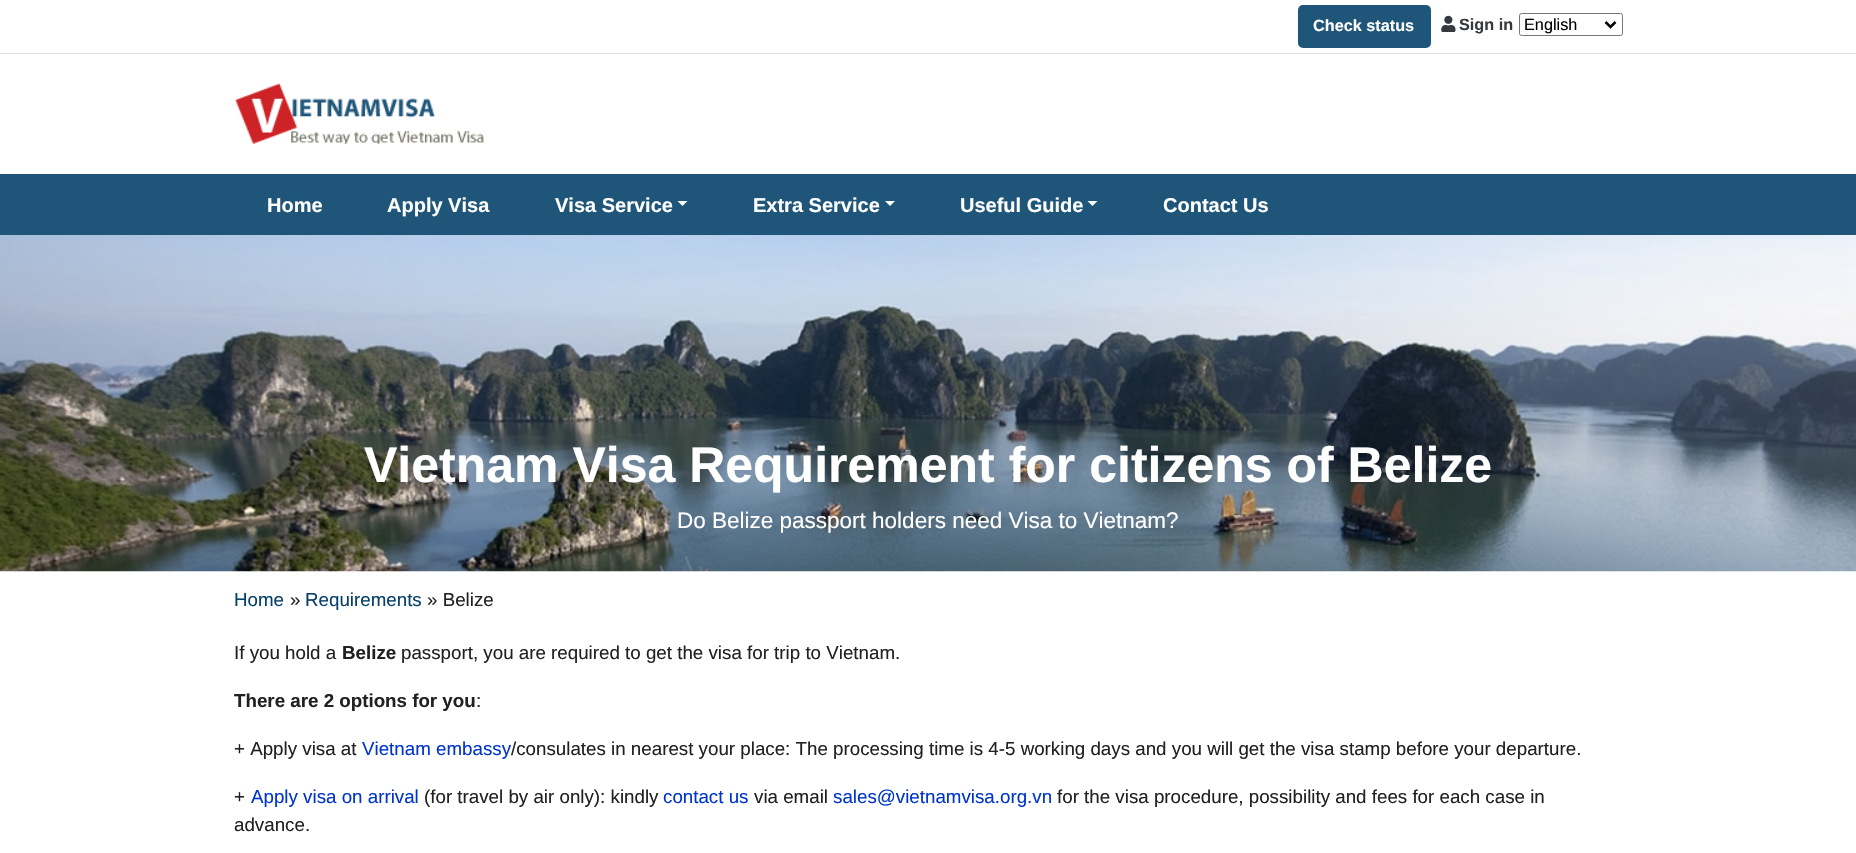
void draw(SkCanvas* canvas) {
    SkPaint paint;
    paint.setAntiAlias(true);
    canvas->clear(0xFFFFFFFF);
    paint.setColor(0xFFDEE2E6);
    canvas->drawRect(SkRect::MakeXYWH(0, 53, 1856, 1), paint);
    paint.setColor(0xFF1E5579);
    canvas->drawRoundRect(SkRect::MakeXYWH(1298, 5, 133, 43), 5, 5, paint);
    SkFont font1(fontMgr->matchFamilyStyle("Liberation Sans", SkFontStyle::Bold()), 16.25f);
    font1.setSubpixel(true);
    paint.setColor(0xFFFFFFFF);
    canvas->drawString("Check status", 1313, 31, font1, paint);
    canvas->drawImageRect(SkImages::DeferredFromEncodedData(SkData::MakeFromFileName("img1.png")), SkRect::MakeXYWH(1441, 15, 15, 17), SkSamplingOptions());
    paint.setColor(0xFF343A40);
    canvas->drawString("Sign in", 1459, 30, font1, paint);
    paint.setStyle(SkPaint::kStroke_Style);
    paint.setStrokeWidth(1);
    paint.setColor(0xFF767676);
    canvas->drawRoundRect(SkRect::MakeXYWH(1519.5f, 13.5f, 103, 22), 2, 2, paint);
    paint.setStrokeWidth(2.5f);
    paint.setColor(0xFF000000);
    canvas->drawPath(SkPathBuilder().moveTo(1605.5f, 22).lineTo(1610.5f, 27).lineTo(1615.5f, 22).detach(), paint);
    SkFont font2(fontMgr->matchFamilyStyle("Liberation Sans", SkFontStyle::Normal()), 16.25f);
    font2.setSubpixel(true);
    paint.setStyle(SkPaint::kFill_Style);
    canvas->drawString("English", 1524, 30, font2, paint);
    canvas->drawImageRect(SkImages::DeferredFromEncodedData(SkData::MakeFromFileName("img2.png")), SkRect::MakeXYWH(235, 83, 249, 61), SkSamplingOptions());
    paint.setColor(0xFF1E5579);
    canvas->drawRect(SkRect::MakeXYWH(0, 174, 1856, 61), paint);
    SkFont font3(fontMgr->matchFamilyStyle("Liberation Sans", SkFontStyle::Bold()), 20);
    font3.setSubpixel(true);
    paint.setColor(0xFFFFFFFF);
    canvas->drawString("Home", 267, 212, font3, paint);
    canvas->drawString("Apply Visa", 387, 212, font3, paint);
    canvas->drawString("Visa Service", 555, 212, font3, paint);
    canvas->drawPath(SkPathBuilder().moveTo(677.5f, 201).lineTo(687.5f, 201).lineTo(682.5f, 206).close().detach(), paint);
    canvas->drawString("Extra Service", 753, 212, font3, paint);
    canvas->drawPath(SkPathBuilder().moveTo(885, 201).lineTo(895, 201).lineTo(890, 206).close().detach(), paint);
    canvas->drawString("Useful Guide", 960, 212, font3, paint);
    canvas->drawPath(SkPathBuilder().moveTo(1087.5f, 201).lineTo(1097.5f, 201).lineTo(1092.5f, 206).close().detach(), paint);
    canvas->drawString("Contact Us", 1163, 212, font3, paint);
    canvas->drawImageRect(SkImages::DeferredFromEncodedData(SkData::MakeFromFileName("img3.png")), SkRect::MakeXYWH(0, 235, 1856, 337), SkSamplingOptions());
    SkFont font4(fontMgr->matchFamilyStyle("Liberation Sans", SkFontStyle::Bold()), 50);
    font4.setSubpixel(true);
    canvas->drawString("Vietnam Visa Requirement for citizens of Belize", 364, 482, font4, paint);
    SkFont font5(fontMgr->matchFamilyStyle("Liberation Sans", SkFontStyle::Normal()), 22.5f);
    font5.setSubpixel(true);
    canvas->drawString("Do Belize passport holders need Visa to Vietnam?", 677, 528, font5, paint);
    SkFont font6(fontMgr->matchFamilyStyle("Liberation Sans", SkFontStyle::Normal()), 18.75f);
    font6.setSubpixel(true);
    paint.setColor(0xFF05406A);
    canvas->drawString("Home", 234, 606, font6, paint);
    paint.setColor(0xFF212121);
    canvas->drawString("»", 290, 606, font6, paint);
    paint.setColor(0xFF05406A);
    canvas->drawString("Requirements", 305, 606, font6, paint);
    paint.setColor(0xFF212121);
    canvas->drawString("» Belize", 427, 606, font6, paint);
    canvas->drawString("If you hold a", 234, 659, font6, paint);
    SkFont font7(fontMgr->matchFamilyStyle("Liberation Sans", SkFontStyle::Bold()), 18.75f);
    font7.setSubpixel(true);
    canvas->drawString("Belize", 342, 659, font7, paint);
    canvas->drawString("passport, you are required to get the visa for trip to Vietnam.", 401, 659, font6, paint);
    canvas->drawString("There are 2 options for you", 234, 707, font7, paint);
    canvas->drawString(":", 476, 707, font6, paint);
    canvas->drawString("+ Apply visa at", 234, 755, font6, paint);
    paint.setColor(0xFF0035CD);
    canvas->drawString("Vietnam embassy", 362, 755, font6, paint);
    paint.setColor(0xFF212121);
    canvas->drawString("/consulates in nearest your place: The processing time is 4-5 working days and you will get the visa stamp before your departure.", 511, 755, font6, paint);
    canvas->drawString("+", 234, 803, font6, paint);
    paint.setColor(0xFF0035CD);
    canvas->drawString("Apply visa on arrival", 251, 803, font6, paint);
    paint.setColor(0xFF212121);
    canvas->drawString("(for travel by air only): kindly", 424, 803, font6, paint);
    paint.setColor(0xFF0035CD);
    canvas->drawString("contact us", 663, 803, font6, paint);
    paint.setColor(0xFF212121);
    canvas->drawString("via email", 754, 803, font6, paint);
    paint.setColor(0xFF0035CD);
    canvas->drawString("sales@vietnamvisa.org.vn", 833, 803, font6, paint);
    paint.setColor(0xFF212121);
    canvas->drawString("for the visa procedure, possibility and fees for each case in", 1057, 803, font6, paint);
    canvas->drawString("advance.", 234, 831, font6, paint);
}
